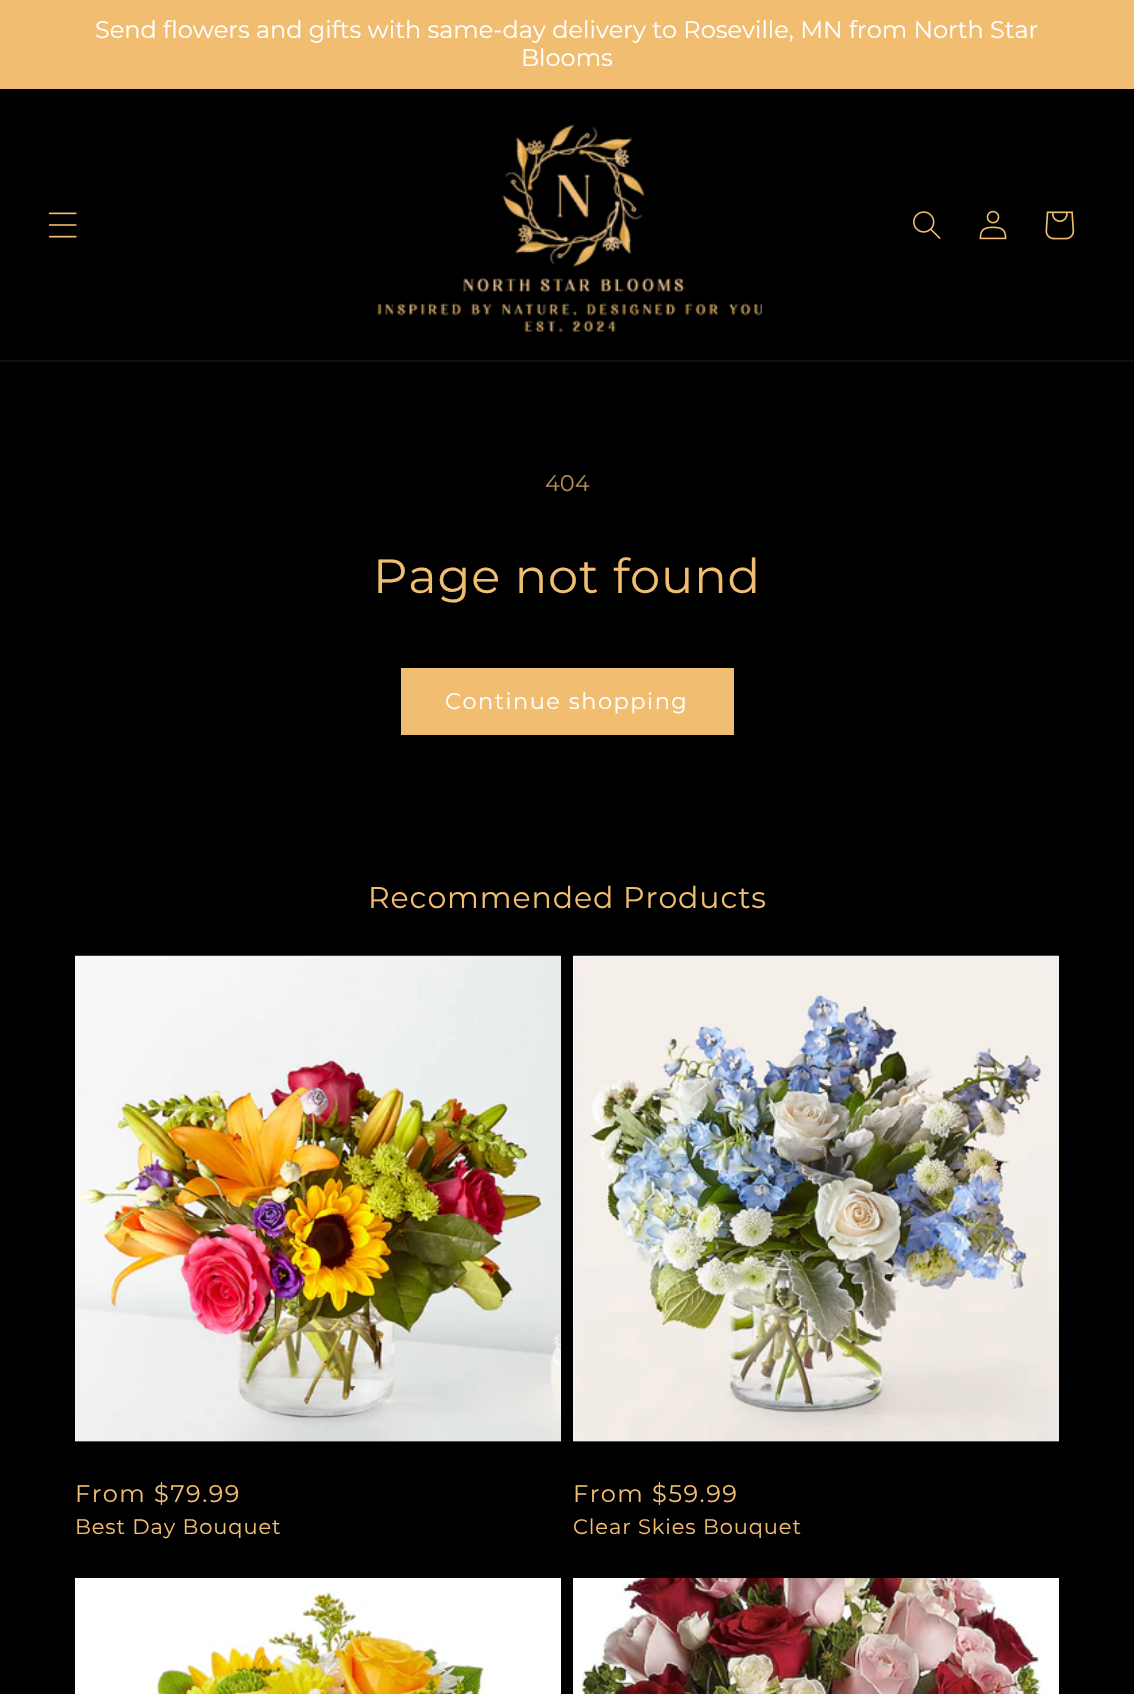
void draw(SkCanvas* canvas) {
    SkPaint paint;
    paint.setAntiAlias(true);
    auto spacedText = [&](const char* s, float x, float y, const SkFont& font, const SkPaint& ink, float letter, float word) {
        std::vector<SkGlyphID> glyphs(font.countText(s, strlen(s), SkTextEncoding::kUTF8));
        std::vector<float> xs(glyphs.size());
        font.textToGlyphs(s, strlen(s), SkTextEncoding::kUTF8, glyphs);
        font.getXPos(glyphs, xs, x);
        float extra = 0;
        for (size_t i = 0; i < glyphs.size(); i++) {
            xs[i] += extra;
            extra += letter + word * (glyphs[i] == font.unicharToGlyph(' '));
        }
        canvas->drawTextBlob(SkTextBlob::MakeFromPosHGlyphs(glyphs, xs, y, font), 0, 0, ink);
    };
    canvas->clear(0xFF000000);
    paint.setColor(0xFFF0BD71);
    canvas->drawRect(SkRect::MakeXYWH(0, 0, 1134, 89), paint);
    SkFont font1(fontMgr->matchFamilyStyle("Montserrat", SkFontStyle::Normal()), 24);
    font1.setSubpixel(true);
    paint.setColor(0xFFFFFFFF);
    canvas->drawString("Send flowers and gifts with same-day delivery to Roseville, MN from North Star", 95, 38, font1, paint);
    canvas->drawString("Blooms", 521, 66, font1, paint);
    paint.setColor(0xFF130F09);
    canvas->drawRect(SkRect::MakeXYWH(0, 360, 1134, 2), paint);
    canvas->drawImageRect(SkImages::DeferredFromEncodedData(SkData::MakeFromFileName("img1.png")), SkRect::MakeXYWH(48, 212, 29, 26), SkSamplingOptions());
    canvas->drawImageRect(SkImages::DeferredFromEncodedData(SkData::MakeFromFileName("img2.png")), SkRect::MakeXYWH(377, 124, 385, 208), SkSamplingOptions());
    canvas->drawImageRect(SkImages::DeferredFromEncodedData(SkData::MakeFromFileName("img3.png")), SkRect::MakeXYWH(913, 211, 28, 28), SkSamplingOptions());
    canvas->drawImageRect(SkImages::DeferredFromEncodedData(SkData::MakeFromFileName("img4.png")), SkRect::MakeXYWH(979, 210, 28, 30), SkSamplingOptions());
    canvas->drawImageRect(SkImages::DeferredFromEncodedData(SkData::MakeFromFileName("img5.png")), SkRect::MakeXYWH(1045, 211, 30, 29), SkSamplingOptions());
    SkFont font2(fontMgr->matchFamilyStyle("Montserrat", SkFontStyle::Normal()), 22.5f);
    font2.setSubpixel(true);
    paint.setColor(0xFFB48E55);
    canvas->drawString("404", 545, 491, font2, paint);
    SkFont font3(fontMgr->matchFamilyStyle("Montserrat", SkFontStyle::Normal()), 48);
    font3.setSubpixel(true);
    paint.setColor(0xFFF0BD71);
    spacedText("Page not found", 373, 593, font3, paint, 0.9f, 0);
    canvas->drawRect(SkRect::MakeXYWH(401, 668, 333, 67), paint);
    paint.setColor(0xFFFFFFFF);
    spacedText("Continue shopping", 445, 709, font2, paint, 1.5f, 0);
    SkFont font4(fontMgr->matchFamilyStyle("Montserrat", SkFontStyle::Normal()), 30);
    font4.setSubpixel(true);
    paint.setColor(0xFFF0BD71);
    spacedText("Recommended Products", 368, 908, font4, paint, 0.9f, 0);
    paint.setColor(0xFF1E280F);
    canvas->drawRect(SkRect::MakeXYWH(75, 1441, 486, 1), paint);
    canvas->drawImageRect(SkImages::DeferredFromEncodedData(SkData::MakeFromFileName("img6.png")), SkRect::MakeXYWH(75, 955, 486, 487), SkSamplingOptions());
    paint.setColor(0xFFF0BD71);
    spacedText("From $79.99", 75, 1502, font1, paint, 1.5f, 0);
    SkFont font5(fontMgr->matchFamilyStyle("Montserrat", SkFontStyle::Normal()), 21);
    font5.setSubpixel(true);
    spacedText("Best Day Bouquet", 75, 1534, font5, paint, 0.9f, 0);
    paint.setColor(0xFF1E280F);
    canvas->drawRect(SkRect::MakeXYWH(573, 1441, 486, 1), paint);
    canvas->drawImageRect(SkImages::DeferredFromEncodedData(SkData::MakeFromFileName("img7.png")), SkRect::MakeXYWH(573, 955, 486, 487), SkSamplingOptions());
    paint.setColor(0xFFF0BD71);
    spacedText("From $59.99", 573, 1502, font1, paint, 1.5f, 0);
    spacedText("Clear Skies Bouquet", 573, 1534, font5, paint, 0.9f, 0);
    canvas->drawImageRect(SkImages::DeferredFromEncodedData(SkData::MakeFromFileName("img8.png")), SkRect::MakeXYWH(75, 1578, 486, 116), SkSamplingOptions());
    canvas->drawImageRect(SkImages::DeferredFromEncodedData(SkData::MakeFromFileName("img9.png")), SkRect::MakeXYWH(573, 1578, 486, 116), SkSamplingOptions());
}
